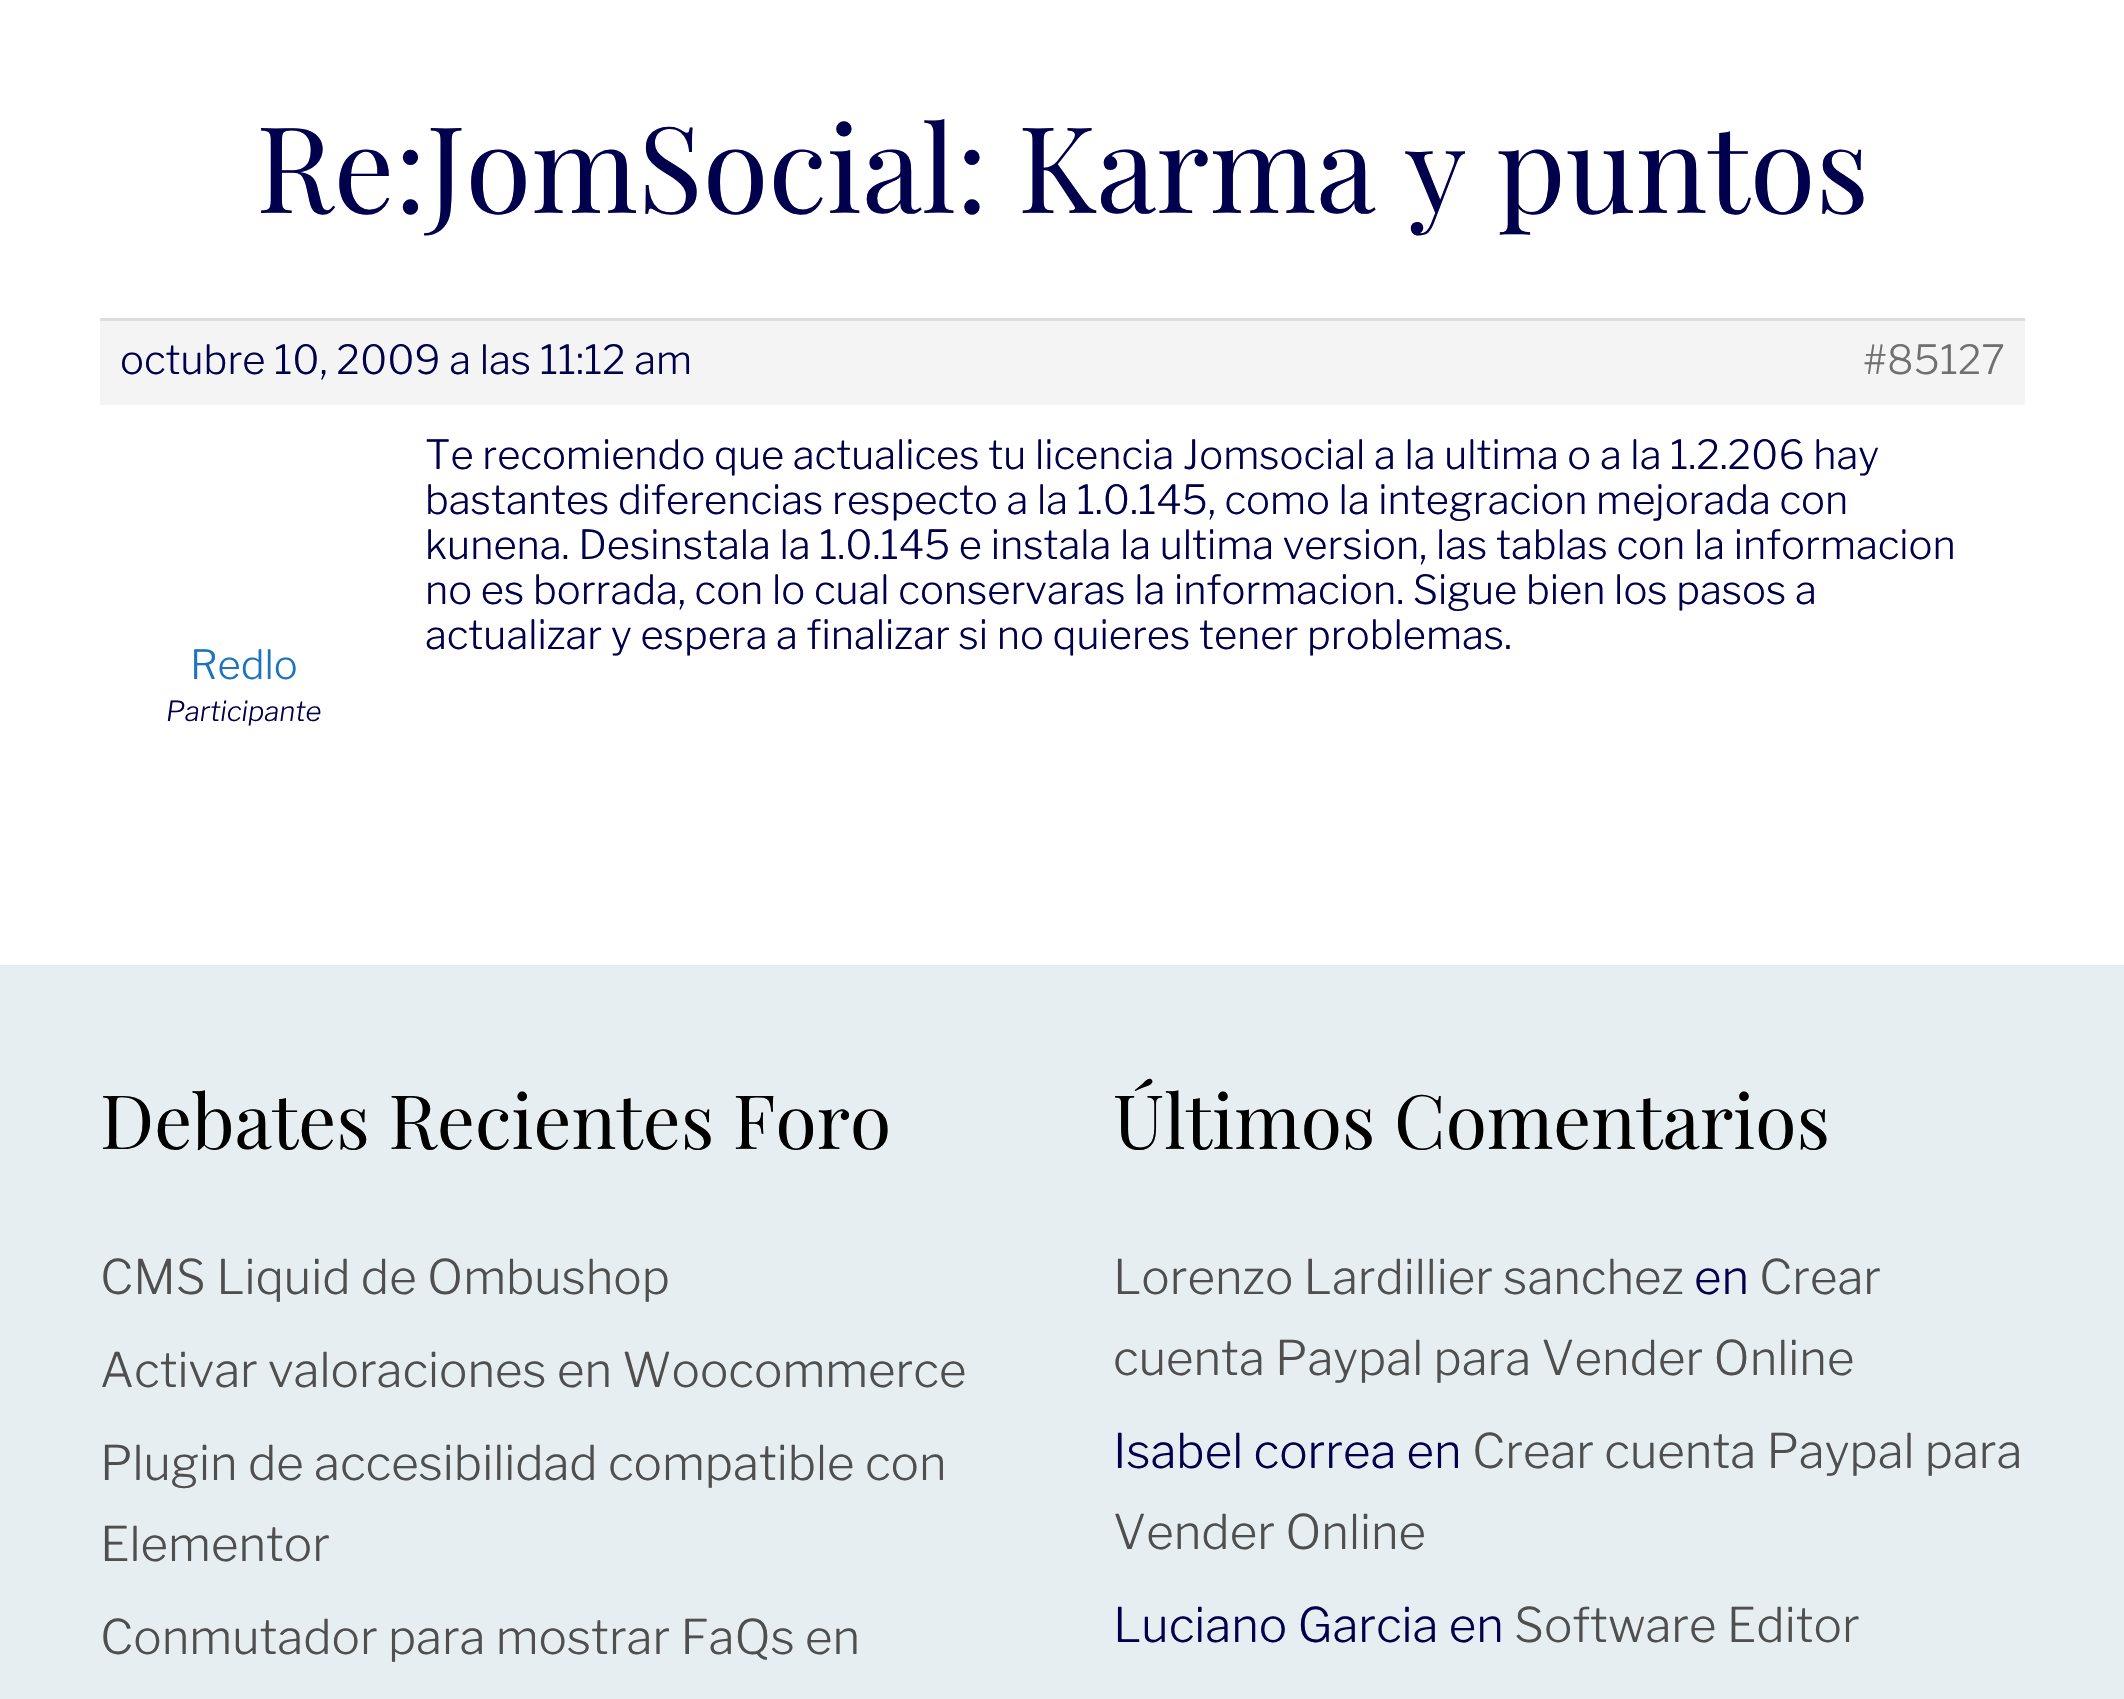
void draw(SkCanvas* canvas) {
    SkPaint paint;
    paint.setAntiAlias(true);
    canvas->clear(0xFFFFFFFF);
    SkFont font1(fontMgr->matchFamilyStyle("Playfair Display", SkFontStyle::Normal()), 120);
    font1.setSubpixel(true);
    paint.setColor(0xFF01004C);
    canvas->drawString("Re:JomSocial: Karma y puntos", 256, 213, font1, paint);
    paint.setColor(0xFFF4F4F4);
    canvas->drawRect(SkRect::MakeXYWH(100, 321, 1925, 84), paint);
    paint.setColor(0xFFDDDDDD);
    canvas->drawRect(SkRect::MakeXYWH(100, 318, 1925, 3), paint);
    SkFont font2(fontMgr->matchFamilyStyle("Libre Franklin", SkFontStyle(300, SkFontStyle::kNormal_Width, SkFontStyle::kUpright_Slant)), 40);
    font2.setSubpixel(true);
    paint.setColor(0xFF01004C);
    canvas->drawString("octubre 10, 2009 a las 11:12 am", 120, 374, font2, paint);
    paint.setColor(0xFF707070);
    canvas->drawString("#85127", 1863, 374, font2, paint);
    paint.setColor(0xFF01004C);
    canvas->drawString("Te recomiendo que actualices tu licencia Jomsocial a la ultima o a la 1.2.206 hay", 425, 469, font2, paint);
    canvas->drawString("bastantes diferencias respecto a la 1.0.145, como la integracion mejorada con", 425, 514, font2, paint);
    canvas->drawString("kunena. Desinstala la 1.0.145 e instala la ultima version, las tablas con la informacion", 425, 559, font2, paint);
    canvas->drawString("no es borrada, con lo cual conservaras la informacion. Sigue bien los pasos a", 425, 604, font2, paint);
    canvas->drawString("actualizar y espera a finalizar si no quieres tener problemas.", 425, 649, font2, paint);
    paint.setColor(0xFF1E73BE);
    canvas->drawString("Redlo", 190, 679, font2, paint);
    SkFont font3(fontMgr->matchFamilyStyle("Libre Franklin", SkFontStyle(300, SkFontStyle::kNormal_Width, SkFontStyle::kItalic_Slant)), 27.5f);
    font3.setSubpixel(true);
    paint.setColor(0xFF01004C);
    canvas->drawString("Participante", 166, 721, font3, paint);
    paint.setColor(0xFFE6EEF2);
    canvas->drawRect(SkRect::MakeXYWH(0, 965, 2124, 734), paint);
    SkFont font4(fontMgr->matchFamilyStyle("Playfair Display", SkFontStyle::Normal()), 75);
    font4.setSubpixel(true);
    paint.setColor(0xFF000000);
    canvas->drawString("Debates Recientes Foro", 100, 1149, font4, paint);
    SkFont font5(fontMgr->matchFamilyStyle("Libre Franklin", SkFontStyle(300, SkFontStyle::kNormal_Width, SkFontStyle::kUpright_Slant)), 47.5f);
    font5.setSubpixel(true);
    paint.setColor(0xFF4F4F4F);
    canvas->drawString("CMS Liquid de Ombushop", 100, 1294, font5, paint);
    canvas->drawString("Activar valoraciones en Woocommerce", 100, 1387, font5, paint);
    canvas->drawString("Plugin de accesibilidad compatible con", 100, 1480, font5, paint);
    canvas->drawString("Elementor", 100, 1561, font5, paint);
    canvas->drawString("Conmutador para mostrar FaQs en", 100, 1654, font5, paint);
    paint.setColor(0xFF000000);
    canvas->drawString("Últimos Comentarios", 1113, 1149, font4, paint);
    paint.setColor(0xFF4F4F4F);
    canvas->drawString("Lorenzo Lardillier sanchez", 1113, 1294, font5, paint);
    paint.setColor(0xFF01004C);
    canvas->drawString("en", 1694, 1294, font5, paint);
    paint.setColor(0xFF4F4F4F);
    canvas->drawString("Crear", 1759, 1294, font5, paint);
    canvas->drawString("cuenta Paypal para Vender Online", 1113, 1375, font5, paint);
    paint.setColor(0xFF01004C);
    canvas->drawString("Isabel correa en", 1113, 1468, font5, paint);
    paint.setColor(0xFF4F4F4F);
    canvas->drawString("Crear cuenta Paypal para", 1472, 1468, font5, paint);
    canvas->drawString("Vender Online", 1113, 1549, font5, paint);
    paint.setColor(0xFF01004C);
    canvas->drawString("Luciano Garcia en", 1113, 1642, font5, paint);
    paint.setColor(0xFF4F4F4F);
    canvas->drawString("Software Editor", 1514, 1642, font5, paint);
}
